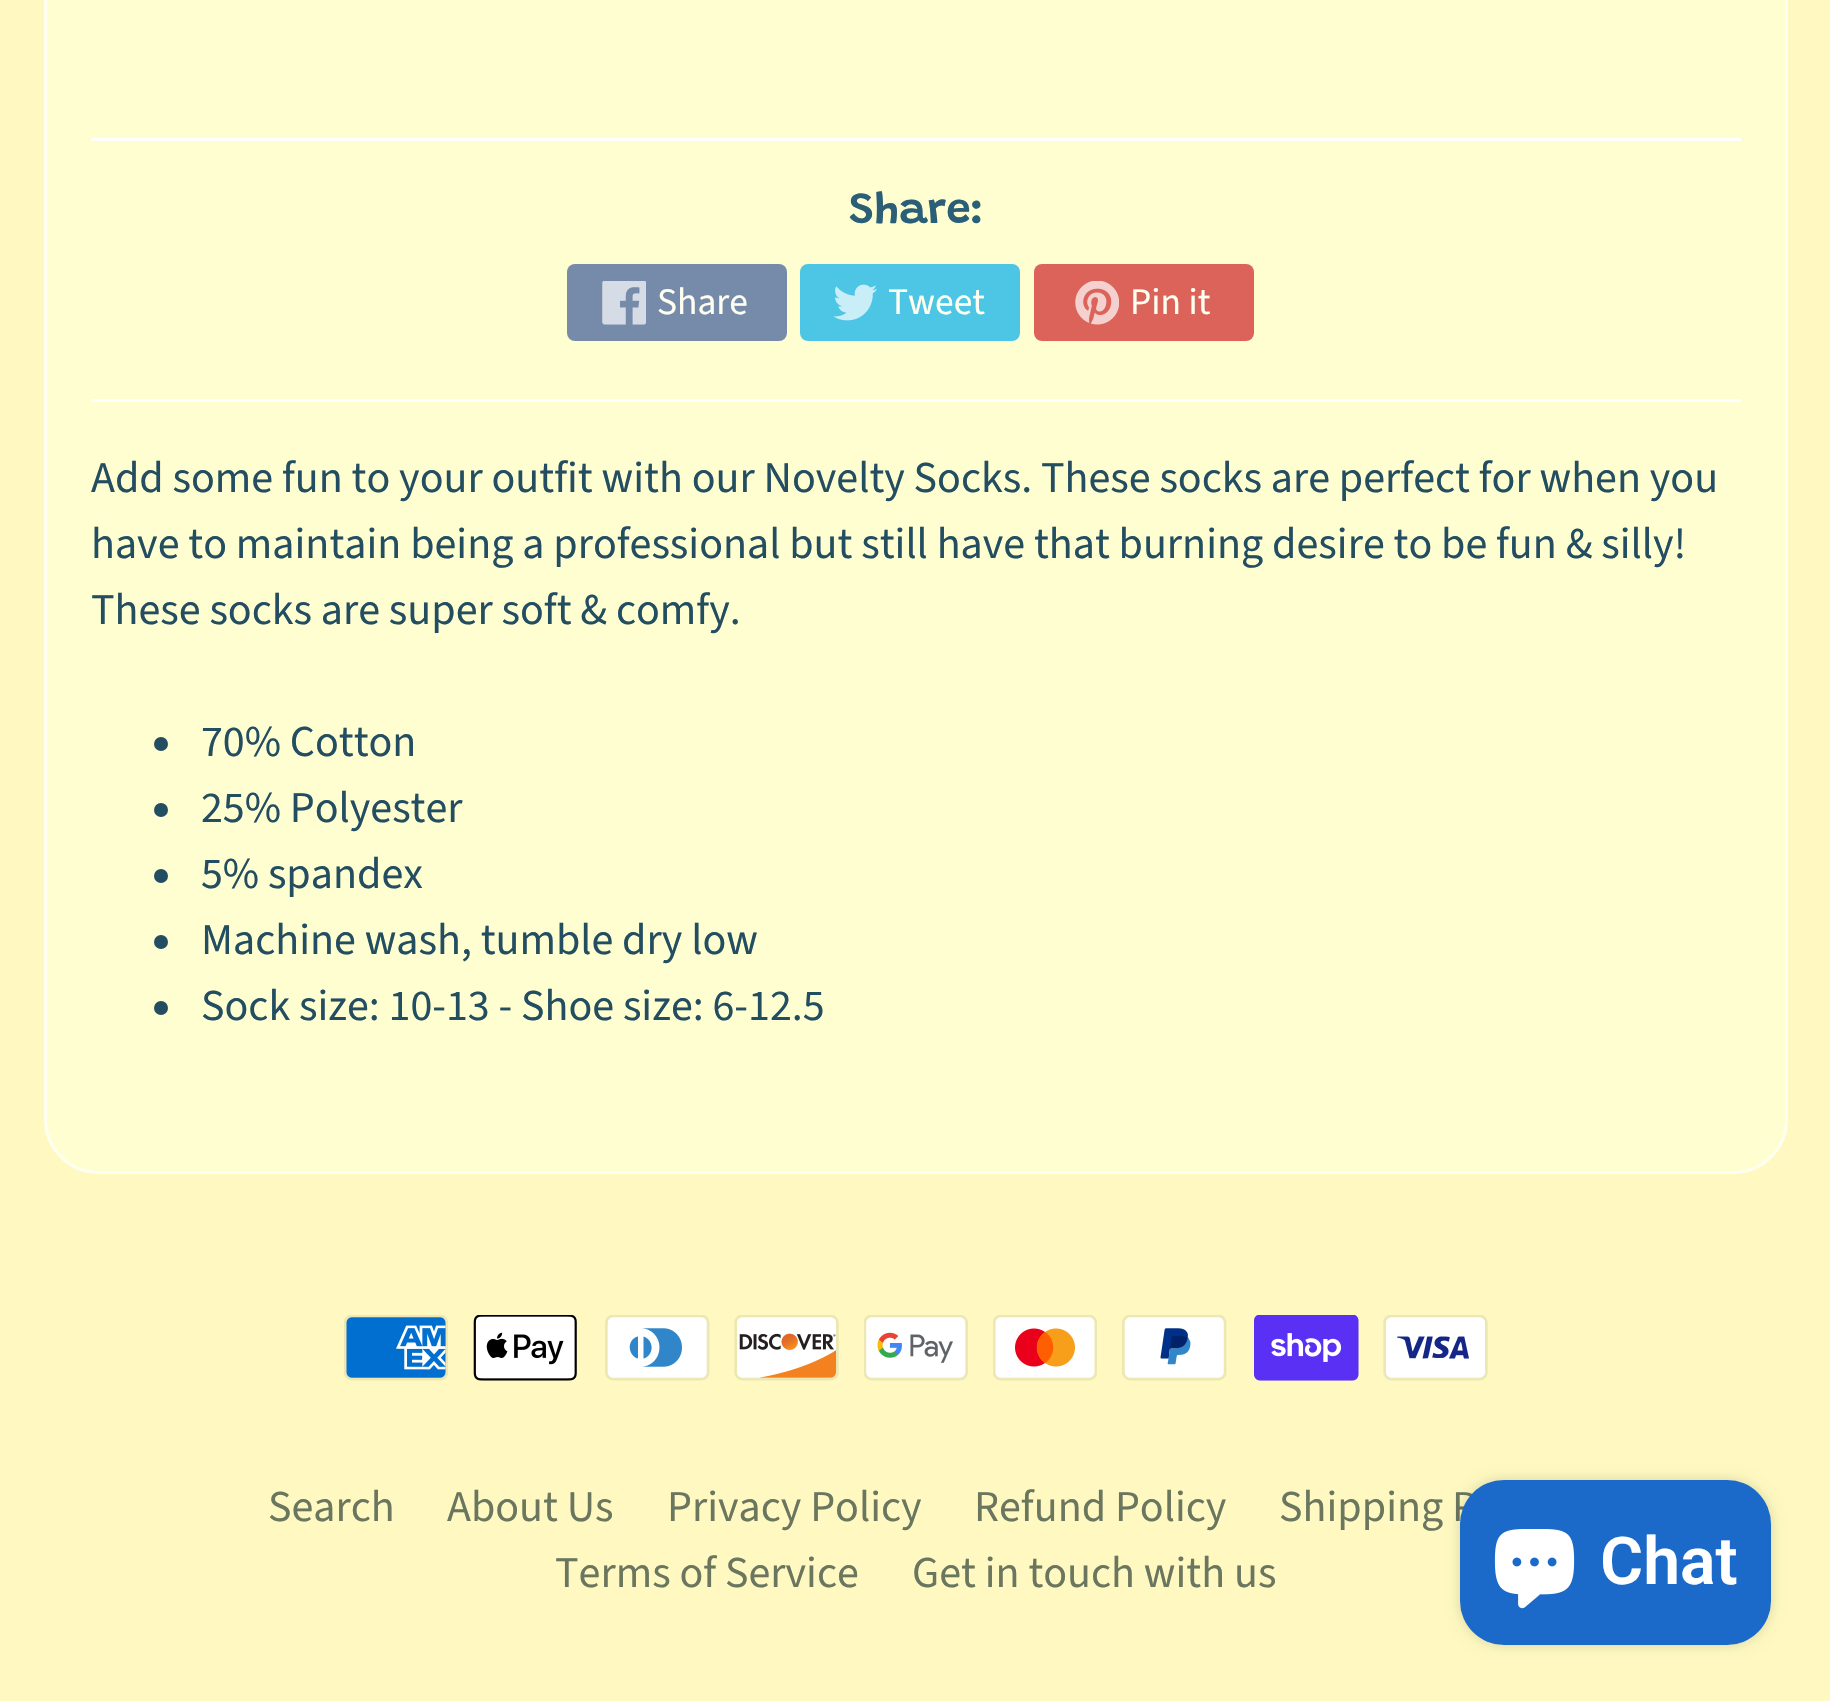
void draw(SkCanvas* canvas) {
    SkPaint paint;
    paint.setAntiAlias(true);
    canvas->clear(0xFFFFF9C1);
    paint.setColor(0xFFFFFED0);
    canvas->drawRoundRect(SkRect::MakeXYWH(44, -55, 1744, 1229), 55, 55, paint);
    paint.setStyle(SkPaint::kStroke_Style);
    paint.setStrokeWidth(3);
    paint.setColor(0xB3FFFFFF);
    canvas->drawRoundRect(SkRect::MakeXYWH(45.5f, -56.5f, 1741, 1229), 53.5f, 53.5f, paint);
    paint.setStyle(SkPaint::kFill_Style);
    paint.setColor(0xFFFFFFFF);
    canvas->drawRect(SkRect::MakeXYWH(91, 138, 1650, 3), paint);
    SkFont font1(fontMgr->matchFamilyStyle("Grandstander", SkFontStyle(600, SkFontStyle::kNormal_Width, SkFontStyle::kUpright_Slant)), 44);
    font1.setSubpixel(true);
    paint.setColor(0xFF2B5F77);
    canvas->drawString("Share:", 849, 223, font1, paint);
    paint.setColor(0xFF768BA9);
    canvas->drawRoundRect(SkRect::MakeXYWH(567, 264, 220, 77), 8, 8, paint);
    canvas->drawImageRect(SkImages::DeferredFromEncodedData(SkData::MakeFromFileName("img1.png")), SkRect::MakeXYWH(602, 281, 44, 44), SkSamplingOptions());
    SkFont font2(fontMgr->matchFamilyStyle("Source Sans Pro", SkFontStyle::Normal()), 37.5f);
    font2.setSubpixel(true);
    paint.setColor(0xFFFFFFF1);
    canvas->drawString("Share", 657, 314, font2, paint);
    paint.setColor(0xFF4DC5E4);
    canvas->drawRoundRect(SkRect::MakeXYWH(800, 264, 220, 77), 8, 8, paint);
    canvas->drawImageRect(SkImages::DeferredFromEncodedData(SkData::MakeFromFileName("img2.png")), SkRect::MakeXYWH(833, 284, 44, 37), SkSamplingOptions());
    paint.setColor(0xFFFFFFF1);
    canvas->drawString("Tweet", 888, 314, font2, paint);
    paint.setColor(0xFFDB635A);
    canvas->drawRoundRect(SkRect::MakeXYWH(1034, 264, 220, 77), 8, 8, paint);
    canvas->drawImageRect(SkImages::DeferredFromEncodedData(SkData::MakeFromFileName("img3.png")), SkRect::MakeXYWH(1075, 281, 44, 44), SkSamplingOptions());
    paint.setColor(0xFFFFFFF1);
    canvas->drawString("Pin it", 1130, 314, font2, paint);
    paint.setColor(0xFFFFFFFF);
    canvas->drawRect(SkRect::MakeXYWH(91, 399, 1650, 3), paint);
    SkFont font3(fontMgr->matchFamilyStyle("Source Sans Pro", SkFontStyle::Normal()), 44);
    font3.setSubpixel(true);
    paint.setColor(0xFF234D61);
    canvas->drawString("Add some fun to your outfit with our Novelty Socks. These socks are perfect for when you", 91, 492, font3, paint);
    canvas->drawString("have to maintain being a professional but still have that burning desire to be fun & silly!", 91, 558, font3, paint);
    canvas->drawString("These socks are super soft & comfy.", 91, 624, font3, paint);
    canvas->drawCircle(161, 744, 7, paint);
    canvas->drawString("70% Cotton", 201, 756, font3, paint);
    canvas->drawCircle(161, 810, 7, paint);
    canvas->drawString("25% Polyester", 201, 822, font3, paint);
    canvas->drawCircle(161, 876, 7, paint);
    canvas->drawString("5% spandex", 201, 888, font3, paint);
    canvas->drawCircle(161, 942, 7, paint);
    canvas->drawString("Machine wash, tumble dry low", 201, 954, font3, paint);
    canvas->drawCircle(161, 1008, 7, paint);
    canvas->drawString("Sock size: 10-13 - Shoe size: 6-12.5", 201, 1020, font3, paint);
    canvas->drawImageRect(SkImages::DeferredFromEncodedData(SkData::MakeFromFileName("img4.png")), SkRect::MakeXYWH(344, 1315, 104, 66), SkSamplingOptions());
    canvas->drawImageRect(SkImages::DeferredFromEncodedData(SkData::MakeFromFileName("img5.png")), SkRect::MakeXYWH(473, 1315, 104, 66), SkSamplingOptions());
    canvas->drawImageRect(SkImages::DeferredFromEncodedData(SkData::MakeFromFileName("img6.png")), SkRect::MakeXYWH(605, 1315, 105, 66), SkSamplingOptions());
    canvas->drawImageRect(SkImages::DeferredFromEncodedData(SkData::MakeFromFileName("img7.png")), SkRect::MakeXYWH(734, 1315, 105, 66), SkSamplingOptions());
    canvas->drawImageRect(SkImages::DeferredFromEncodedData(SkData::MakeFromFileName("img8.png")), SkRect::MakeXYWH(864, 1315, 104, 66), SkSamplingOptions());
    canvas->drawImageRect(SkImages::DeferredFromEncodedData(SkData::MakeFromFileName("img9.png")), SkRect::MakeXYWH(993, 1315, 104, 66), SkSamplingOptions());
    canvas->drawImageRect(SkImages::DeferredFromEncodedData(SkData::MakeFromFileName("img10.png")), SkRect::MakeXYWH(1122, 1315, 105, 66), SkSamplingOptions());
    canvas->drawImageRect(SkImages::DeferredFromEncodedData(SkData::MakeFromFileName("img11.png")), SkRect::MakeXYWH(1254, 1315, 105, 66), SkSamplingOptions());
    canvas->drawImageRect(SkImages::DeferredFromEncodedData(SkData::MakeFromFileName("img12.png")), SkRect::MakeXYWH(1383, 1315, 105, 66), SkSamplingOptions());
    paint.setColor(0xFF6B765F);
    canvas->drawString("Search", 268, 1521, font3, paint);
    canvas->drawString("About Us", 447, 1521, font3, paint);
    canvas->drawString("Privacy Policy", 667, 1521, font3, paint);
    canvas->drawString("Refund Policy", 974, 1521, font3, paint);
    canvas->drawString("Shipping P", 1279, 1521, font3, paint);
    canvas->drawString("Terms of Service", 555, 1587, font3, paint);
    canvas->drawString("Get in touch with us", 912, 1587, font3, paint);
    paint.setColor(0x26000000);
    paint.setMaskFilter(SkMaskFilter::MakeBlur(kNormal_SkBlurStyle, 7));
    canvas->drawRoundRect(SkRect::MakeXYWH(1460, 1480, 311, 165), 44, 44, paint);
    paint.setMaskFilter(nullptr);
    paint.setColor(0xFF1B6ACA);
    canvas->drawRoundRect(SkRect::MakeXYWH(1460, 1480, 311, 165), 44, 44, paint);
    canvas->drawImageRect(SkImages::DeferredFromEncodedData(SkData::MakeFromFileName("img13.png")), SkRect::MakeXYWH(1494, 1529, 81, 80), SkSamplingOptions());
    SkFont font4(fontMgr->matchFamilyStyle("Roboto", SkFontStyle(600, SkFontStyle::kNormal_Width, SkFontStyle::kUpright_Slant)), 66);
    font4.setSubpixel(true);
    paint.setColor(0xFFFFFFFF);
    canvas->drawString("Chat", 1600, 1584, font4, paint);
}
